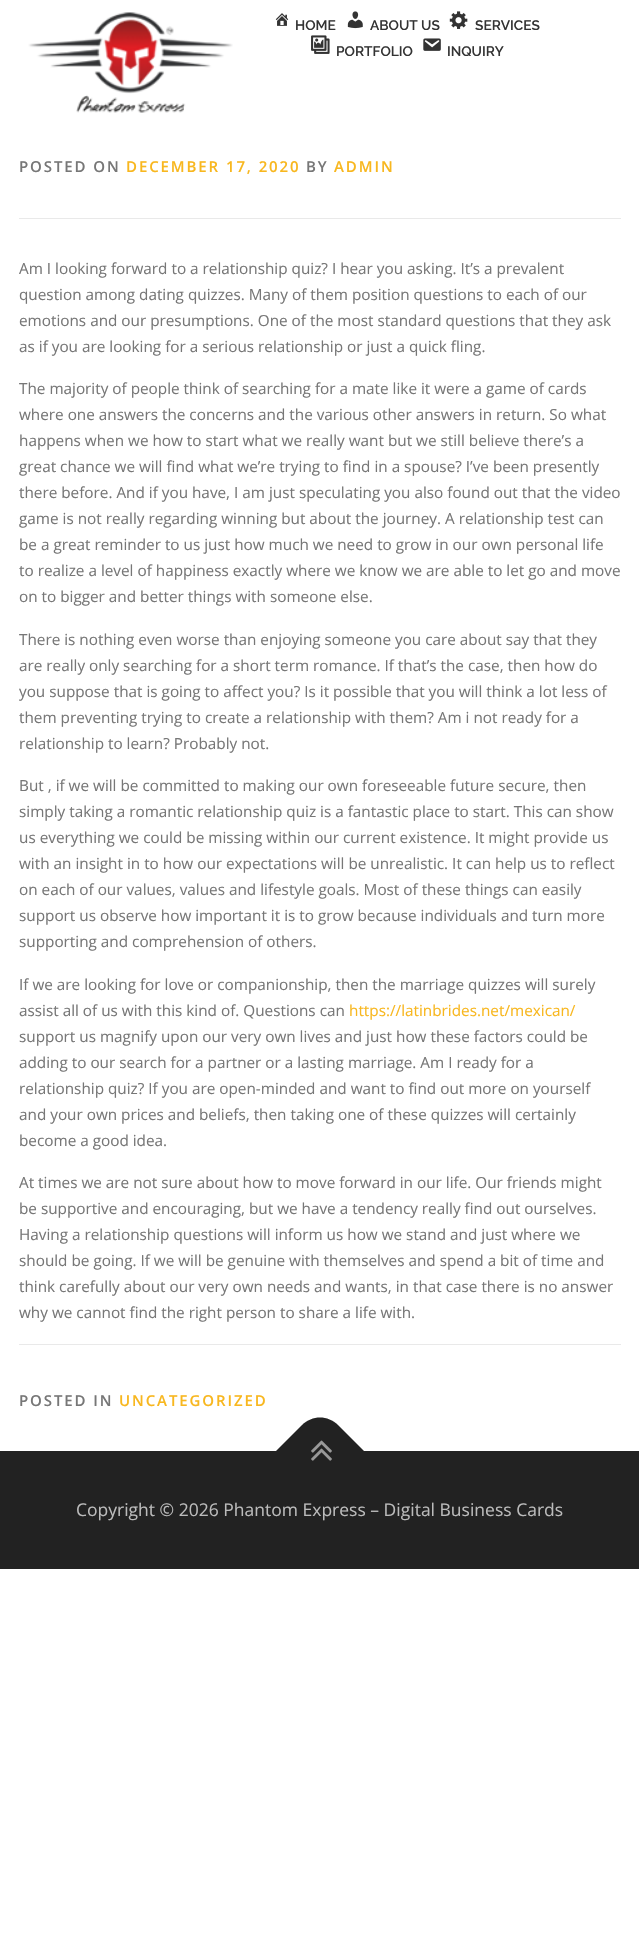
void draw(SkCanvas* canvas) {
    SkPaint paint;
    paint.setAntiAlias(true);
    auto spacedText = [&](const char* s, float x, float y, const SkFont& font, const SkPaint& ink, float letter, float word) {
        std::vector<SkGlyphID> glyphs(font.countText(s, strlen(s), SkTextEncoding::kUTF8));
        std::vector<float> xs(glyphs.size());
        font.textToGlyphs(s, strlen(s), SkTextEncoding::kUTF8, glyphs);
        font.getXPos(glyphs, xs, x);
        float extra = 0;
        for (size_t i = 0; i < glyphs.size(); i++) {
            xs[i] += extra;
            extra += letter + word * (glyphs[i] == font.unicharToGlyph(' '));
        }
        canvas->drawTextBlob(SkTextBlob::MakeFromPosHGlyphs(glyphs, xs, y, font), 0, 0, ink);
    };
    canvas->clear(0xFFFFFFFF);
    canvas->drawImageRect(SkImages::DeferredFromEncodedData(SkData::MakeFromFileName("img1.png")), SkRect::MakeXYWH(28, 12, 205, 101), SkSamplingOptions());
    canvas->drawImageRect(SkImages::DeferredFromEncodedData(SkData::MakeFromFileName("img2.png")), SkRect::MakeXYWH(275, 13, 14, 13), SkSamplingOptions());
    SkFont font1(fontMgr->matchFamilyStyle("Raleway", SkFontStyle(600, SkFontStyle::kNormal_Width, SkFontStyle::kUpright_Slant)), 13.75f);
    font1.setSubpixel(true);
    paint.setColor(0xFF333333);
    canvas->drawString("HOME", 295, 30, font1, paint);
    canvas->drawImageRect(SkImages::DeferredFromEncodedData(SkData::MakeFromFileName("img3.png")), SkRect::MakeXYWH(347, 11, 16, 18), SkSamplingOptions());
    canvas->drawString("ABOUT US", 370, 30, font1, paint);
    canvas->drawImageRect(SkImages::DeferredFromEncodedData(SkData::MakeFromFileName("img4.png")), SkRect::MakeXYWH(449, 11, 19, 18), SkSamplingOptions());
    canvas->drawString("SERVICES", 475, 30, font1, paint);
    canvas->drawImageRect(SkImages::DeferredFromEncodedData(SkData::MakeFromFileName("img5.png")), SkRect::MakeXYWH(311, 35, 19, 19), SkSamplingOptions());
    canvas->drawString("PORTFOLIO", 336, 56, font1, paint);
    canvas->drawImageRect(SkImages::DeferredFromEncodedData(SkData::MakeFromFileName("img6.png")), SkRect::MakeXYWH(423, 38, 18, 13), SkSamplingOptions());
    canvas->drawString("INQUIRY", 447, 56, font1, paint);
    paint.setColor(0xFFE9E9E9);
    canvas->drawRect(SkRect::MakeXYWH(19, 218, 602, 1), paint);
    SkFont font2(fontMgr->matchFamilyStyle("Open Sans", SkFontStyle(600, SkFontStyle::kNormal_Width, SkFontStyle::kUpright_Slant)), 15);
    font2.setSubpixel(true);
    paint.setColor(0xFF777777);
    spacedText("POSTED ON", 19, 172, font2, paint, 1.9f, 0);
    paint.setColor(0xFFF8B71F);
    spacedText("DECEMBER 17, 2020", 126, 172, font2, paint, 1.9f, 0);
    paint.setColor(0xFF777777);
    spacedText("BY", 306, 172, font2, paint, 1.9f, 0);
    paint.setColor(0xFFF8B71F);
    spacedText("ADMIN", 334, 172, font2, paint, 1.9f, 0);
    SkFont font3(fontMgr->matchFamilyStyle("Open Sans", SkFontStyle::Normal()), 15.3f);
    font3.setSubpixel(true);
    paint.setColor(0xFF777777);
    canvas->drawString("Am I looking forward to a relationship quiz? I hear you asking. It’s a prevalent", 19, 274, font3, paint);
    canvas->drawString("question among dating quizzes. Many of them position questions to each of our", 19, 300, font3, paint);
    canvas->drawString("emotions and our presumptions. One of the most standard questions that they ask", 19, 326, font3, paint);
    canvas->drawString("as if you are looking for a serious relationship or just a quick fling.", 19, 352, font3, paint);
    canvas->drawString("The majority of people think of searching for a mate like it were a game of cards", 19, 394, font3, paint);
    canvas->drawString("where one answers the concerns and the various other answers in return. So what", 19, 420, font3, paint);
    canvas->drawString("happens when we how to start what we really want but we still believe there’s a", 19, 446, font3, paint);
    canvas->drawString("great chance we will find what we’re trying to find in a spouse? I’ve been presently", 19, 472, font3, paint);
    canvas->drawString("there before. And if you have, I am just speculating you also found out that the video", 19, 498, font3, paint);
    canvas->drawString("game is not really regarding winning but about the journey. A relationship test can", 19, 524, font3, paint);
    canvas->drawString("be a great reminder to us just how much we need to grow in our own personal life", 19, 550, font3, paint);
    canvas->drawString("to realize a level of happiness exactly where we know we are able to let go and move", 19, 576, font3, paint);
    canvas->drawString("on to bigger and better things with someone else.", 19, 602, font3, paint);
    canvas->drawString("There is nothing even worse than enjoying someone you care about say that they", 19, 645, font3, paint);
    canvas->drawString("are really only searching for a short term romance. If that’s the case, then how do", 19, 671, font3, paint);
    canvas->drawString("you suppose that is going to affect you? Is it possible that you will think a lot less of", 19, 697, font3, paint);
    canvas->drawString("them preventing trying to create a relationship with them? Am i not ready for a", 19, 723, font3, paint);
    canvas->drawString("relationship to learn? Probably not.", 19, 749, font3, paint);
    canvas->drawString("But , if we will be committed to making our own foreseeable future secure, then", 19, 791, font3, paint);
    canvas->drawString("simply taking a romantic relationship quiz is a fantastic place to start. This can show", 19, 817, font3, paint);
    canvas->drawString("us everything we could be missing within our current existence. It might provide us", 19, 843, font3, paint);
    canvas->drawString("with an insight in to how our expectations will be unrealistic. It can help us to reflect", 19, 869, font3, paint);
    canvas->drawString("on each of our values, values and lifestyle goals. Most of these things can easily", 19, 895, font3, paint);
    canvas->drawString("support us observe how important it is to grow because individuals and turn more", 19, 921, font3, paint);
    canvas->drawString("supporting and comprehension of others.", 19, 947, font3, paint);
    canvas->drawString("If we are looking for love or companionship, then the marriage quizzes will surely", 19, 990, font3, paint);
    canvas->drawString("assist all of us with this kind of. Questions can", 19, 1016, font3, paint);
    paint.setColor(0xFFF8B71F);
    canvas->drawString("https://latinbrides.net/mexican/", 349, 1016, font3, paint);
    paint.setColor(0xFF777777);
    canvas->drawString("support us magnify upon our very own lives and just how these factors could be", 19, 1042, font3, paint);
    canvas->drawString("adding to our search for a partner or a lasting marriage. Am I ready for a", 19, 1068, font3, paint);
    canvas->drawString("relationship quiz? If you are open-minded and want to find out more on yourself", 19, 1094, font3, paint);
    canvas->drawString("and your own prices and beliefs, then taking one of these quizzes will certainly", 19, 1120, font3, paint);
    canvas->drawString("become a good idea.", 19, 1146, font3, paint);
    canvas->drawString("At times we are not sure about how to move forward in our life. Our friends might", 19, 1188, font3, paint);
    canvas->drawString("be supportive and encouraging, but we have a tendency really find out ourselves.", 19, 1214, font3, paint);
    canvas->drawString("Having a relationship questions will inform us how we stand and just where we", 19, 1240, font3, paint);
    canvas->drawString("should be going. If we will be genuine with themselves and spend a bit of time and", 19, 1266, font3, paint);
    canvas->drawString("think carefully about our very own needs and wants, in that case there is no answer", 19, 1292, font3, paint);
    canvas->drawString("why we cannot find the right person to share a life with.", 19, 1318, font3, paint);
    paint.setColor(0xFFE9E9E9);
    canvas->drawRect(SkRect::MakeXYWH(19, 1344, 602, 1), paint);
    paint.setColor(0xFF777777);
    spacedText("POSTED IN", 19, 1406, font2, paint, 1.9f, 0);
    paint.setColor(0xFFF8B71F);
    spacedText("UNCATEGORIZED", 119, 1406, font2, paint, 1.9f, 0);
    paint.setColor(0xFF222222);
    canvas->drawRect(SkRect::MakeXYWH(0, 1451, 639, 118), paint);
    canvas->drawPath(SkPathBuilder().moveTo(276, 1451).lineTo(302, 1425).cubicTo(312, 1415, 328, 1415, 338, 1425).lineTo(364, 1451).lineTo(320, 1495).close().detach(), paint);
    canvas->drawImageRect(SkImages::DeferredFromEncodedData(SkData::MakeFromFileName("img7.png")), SkRect::MakeXYWH(311, 1440, 21, 21), SkSamplingOptions());
    SkFont font4(fontMgr->matchFamilyStyle("Open Sans", SkFontStyle::Normal()), 17.5f);
    font4.setSubpixel(true);
    paint.setColor(0xFFBBBBBB);
    canvas->drawString("Copyright © 2026 Phantom Express – Digital Business Cards", 76, 1516, font4, paint);
}
